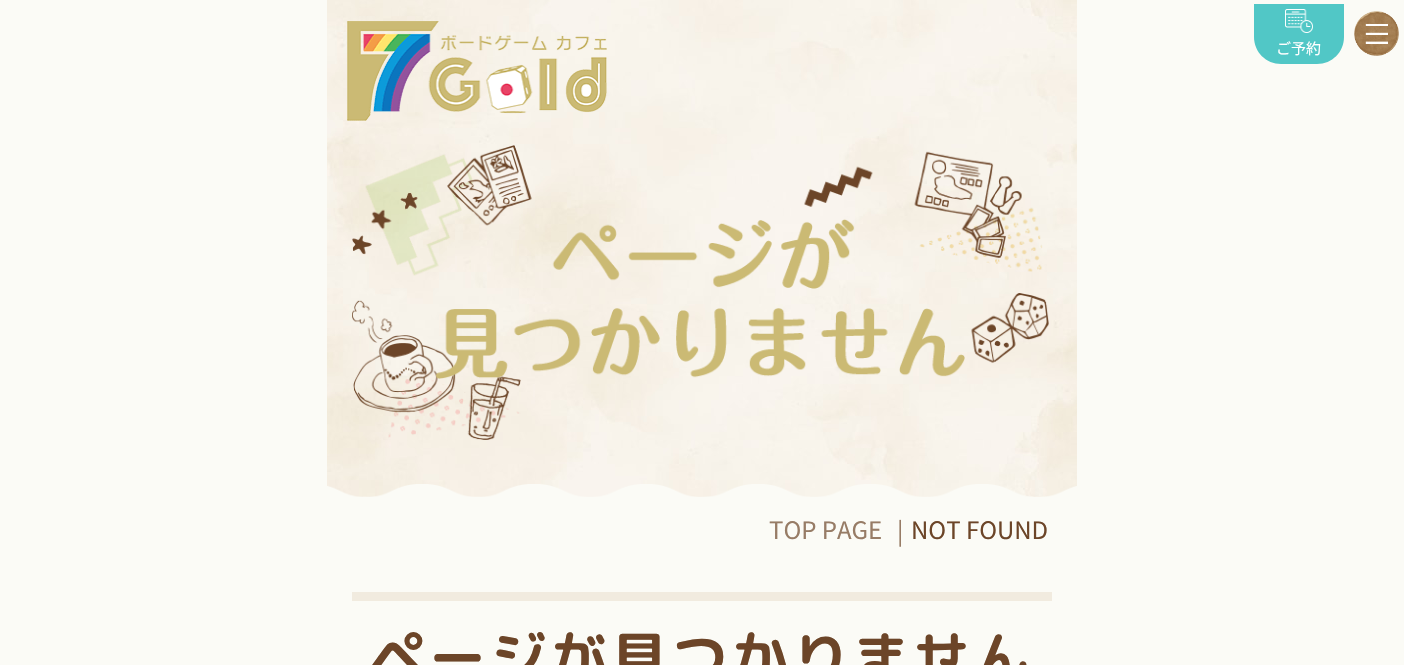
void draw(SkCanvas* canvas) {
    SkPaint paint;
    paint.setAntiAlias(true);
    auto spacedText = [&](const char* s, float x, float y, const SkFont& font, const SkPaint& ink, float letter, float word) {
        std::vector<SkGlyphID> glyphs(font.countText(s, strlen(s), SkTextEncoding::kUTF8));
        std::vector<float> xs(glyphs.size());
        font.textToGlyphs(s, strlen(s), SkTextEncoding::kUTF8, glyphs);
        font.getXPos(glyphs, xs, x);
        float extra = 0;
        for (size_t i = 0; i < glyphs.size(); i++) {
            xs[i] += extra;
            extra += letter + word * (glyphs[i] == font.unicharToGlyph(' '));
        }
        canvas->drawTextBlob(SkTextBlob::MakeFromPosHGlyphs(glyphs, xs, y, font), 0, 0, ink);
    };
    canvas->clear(0xFFFBFBF6);
    canvas->drawImageRect(SkImages::DeferredFromEncodedData(SkData::MakeFromFileName("img1.png")), SkRect::MakeXYWH(327, 0, 750, 497), SkSamplingOptions());
    canvas->drawImageRect(SkImages::DeferredFromEncodedData(SkData::MakeFromFileName("img2.png")), SkRect::MakeXYWH(352, 145, 697, 295), SkSamplingOptions());
    canvas->drawImageRect(SkImages::DeferredFromEncodedData(SkData::MakeFromFileName("img3.png")), SkRect::MakeXYWH(436, 219, 529, 160), SkSamplingOptions());
    canvas->drawImageRect(SkImages::DeferredFromEncodedData(SkData::MakeFromFileName("img4.png")), SkRect::MakeXYWH(347, 21, 260, 100), SkSamplingOptions());
    paint.setColor(0xFF51C7C6);
    canvas->drawPath(SkPathBuilder().moveTo(1254, 4).lineTo(1344, 4).lineTo(1344, 37).cubicTo(1344, 52, 1332, 64, 1317, 64).lineTo(1281, 64).cubicTo(1266, 64, 1254, 52, 1254, 37).close().detach(), paint);
    canvas->drawImageRect(SkImages::DeferredFromEncodedData(SkData::MakeFromFileName("img5.png")), SkRect::MakeXYWH(1285, 9, 28, 24), SkSamplingOptions());
    SkFont font1(fontMgr->matchFamilyStyle("Noto Sans JP", SkFontStyle::Normal()), 15);
    font1.setSubpixel(true);
    paint.setColor(0xFFFFFFFF);
    canvas->drawString("ご予約", 1276, 54, font1, paint);
    canvas->drawImageRect(SkImages::DeferredFromEncodedData(SkData::MakeFromFileName("img6.png")), SkRect::MakeXYWH(1354, 11, 45, 45), SkSamplingOptions());
    SkFont font2(fontMgr->matchFamilyStyle("Noto Sans JP", SkFontStyle::Normal()), 24);
    font2.setSubpixel(true);
    paint.setColor(0xFF977C66);
    canvas->drawString("TOP PAGE", 769, 539, font2, paint);
    canvas->drawString("|", 897, 540, font2, paint);
    paint.setColor(0xFF6C4528);
    canvas->drawString("NOT FOUND", 911, 539, font2, paint);
    paint.setColor(0xFFF1EBDF);
    canvas->drawRect(SkRect::MakeXYWH(352, 592, 700, 9), paint);
    SkFont font3(fontMgr->matchFamilyStyle("Rounded Mplus 1c Bold", SkFontStyle::Bold()), 56);
    font3.setSubpixel(true);
    paint.setColor(0xFF6C4528);
    spacedText("ページが見つかりません", 369, 678, font3, paint, 4.5f, 0);
}
